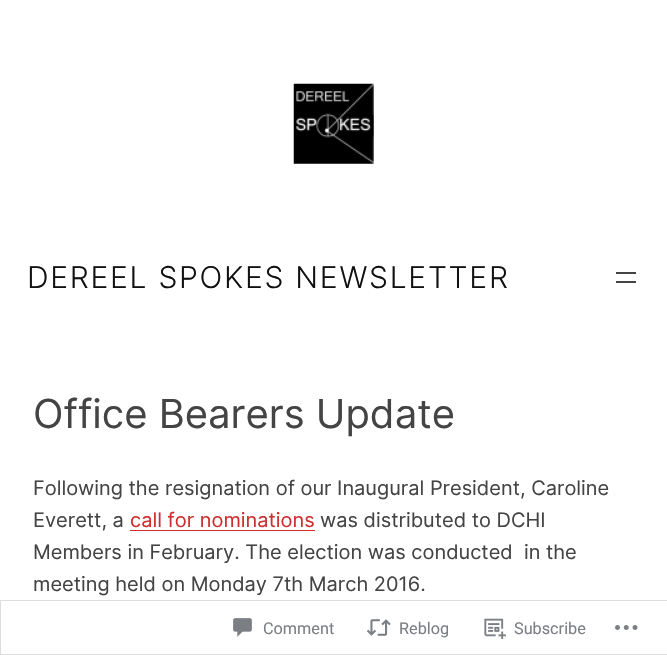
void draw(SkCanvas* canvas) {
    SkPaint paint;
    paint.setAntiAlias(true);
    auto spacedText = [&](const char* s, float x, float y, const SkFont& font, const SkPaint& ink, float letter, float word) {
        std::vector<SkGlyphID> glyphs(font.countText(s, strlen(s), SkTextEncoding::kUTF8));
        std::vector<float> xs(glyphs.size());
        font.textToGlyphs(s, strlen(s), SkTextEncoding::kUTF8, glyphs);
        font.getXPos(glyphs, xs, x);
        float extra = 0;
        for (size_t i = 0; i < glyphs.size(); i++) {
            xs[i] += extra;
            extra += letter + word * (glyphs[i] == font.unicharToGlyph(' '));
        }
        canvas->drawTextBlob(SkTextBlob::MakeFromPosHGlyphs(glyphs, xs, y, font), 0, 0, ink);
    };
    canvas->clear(0xFFFFFFFF);
    canvas->drawImageRect(SkImages::DeferredFromEncodedData(SkData::MakeFromFileName("img1.png")), SkRect::MakeXYWH(293, 83, 81, 81), SkSamplingOptions());
    SkFont font1(fontMgr->matchFamilyStyle("Inter", SkFontStyle(300, SkFontStyle::kNormal_Width, SkFontStyle::kUpright_Slant)), 30);
    font1.setSubpixel(true);
    paint.setColor(0xFF111111);
    spacedText("DEREEL SPOKES NEWSLETTER", 27, 288, font1, paint, 1.75f, 0);
    paint.setColor(0xFF444444);
    canvas->drawRect(SkRect::MakeXYWH(616, 272, 20, 2), paint);
    canvas->drawRect(SkRect::MakeXYWH(616, 281, 20, 2), paint);
    SkFont font2(fontMgr->matchFamilyStyle("Inter", SkFontStyle::Normal()), 40);
    font2.setSubpixel(true);
    canvas->drawString("Office Bearers Update", 33, 428, font2, paint);
    SkFont font3(fontMgr->matchFamilyStyle("Inter", SkFontStyle::Normal()), 20);
    font3.setSubpixel(true);
    canvas->drawString("Following the resignation of our Inaugural President, Caroline", 33, 495, font3, paint);
    canvas->drawString("Everett, a", 33, 527, font3, paint);
    paint.setColor(0xFFCF2E2E);
    canvas->drawString("call for nominations", 130, 527, font3, paint);
    canvas->drawRect(SkRect::MakeXYWH(130, 530, 185, 1), paint);
    paint.setColor(0xFF444444);
    canvas->drawString("was distributed to DCHI", 320, 527, font3, paint);
    canvas->drawString("Members in February. The election was conducted  in the", 33, 559, font3, paint);
    canvas->drawString("meeting held on Monday 7th March 2016.", 33, 591, font3, paint);
    paint.setStyle(SkPaint::kStroke_Style);
    paint.setStrokeWidth(1);
    paint.setColor(0xFADCDCDE);
    canvas->drawRect(SkRect::MakeXYWH(0.5f, 600.5f, 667, 54), paint);
    canvas->drawImageRect(SkImages::DeferredFromEncodedData(SkData::MakeFromFileName("img2.png")), SkRect::MakeXYWH(233, 618, 19, 19), SkSamplingOptions());
    SkFont font4(fontMgr->matchFamilyStyle("Roboto", SkFontStyle::Normal()), 16.25f);
    font4.setSubpixel(true);
    paint.setStyle(SkPaint::kFill_Style);
    paint.setColor(0xFF7B7F85);
    canvas->drawString("Comment", 263, 634, font4, paint);
    canvas->drawImageRect(SkImages::DeferredFromEncodedData(SkData::MakeFromFileName("img3.png")), SkRect::MakeXYWH(366, 619, 25, 17), SkSamplingOptions());
    canvas->drawString("Reblog", 399, 634, font4, paint);
    canvas->drawImageRect(SkImages::DeferredFromEncodedData(SkData::MakeFromFileName("img4.png")), SkRect::MakeXYWH(484, 618, 22, 22), SkSamplingOptions());
    canvas->drawString("Subscribe", 514, 634, font4, paint);
    canvas->drawImageRect(SkImages::DeferredFromEncodedData(SkData::MakeFromFileName("img5.png")), SkRect::MakeXYWH(615, 625, 23, 5), SkSamplingOptions());
}
